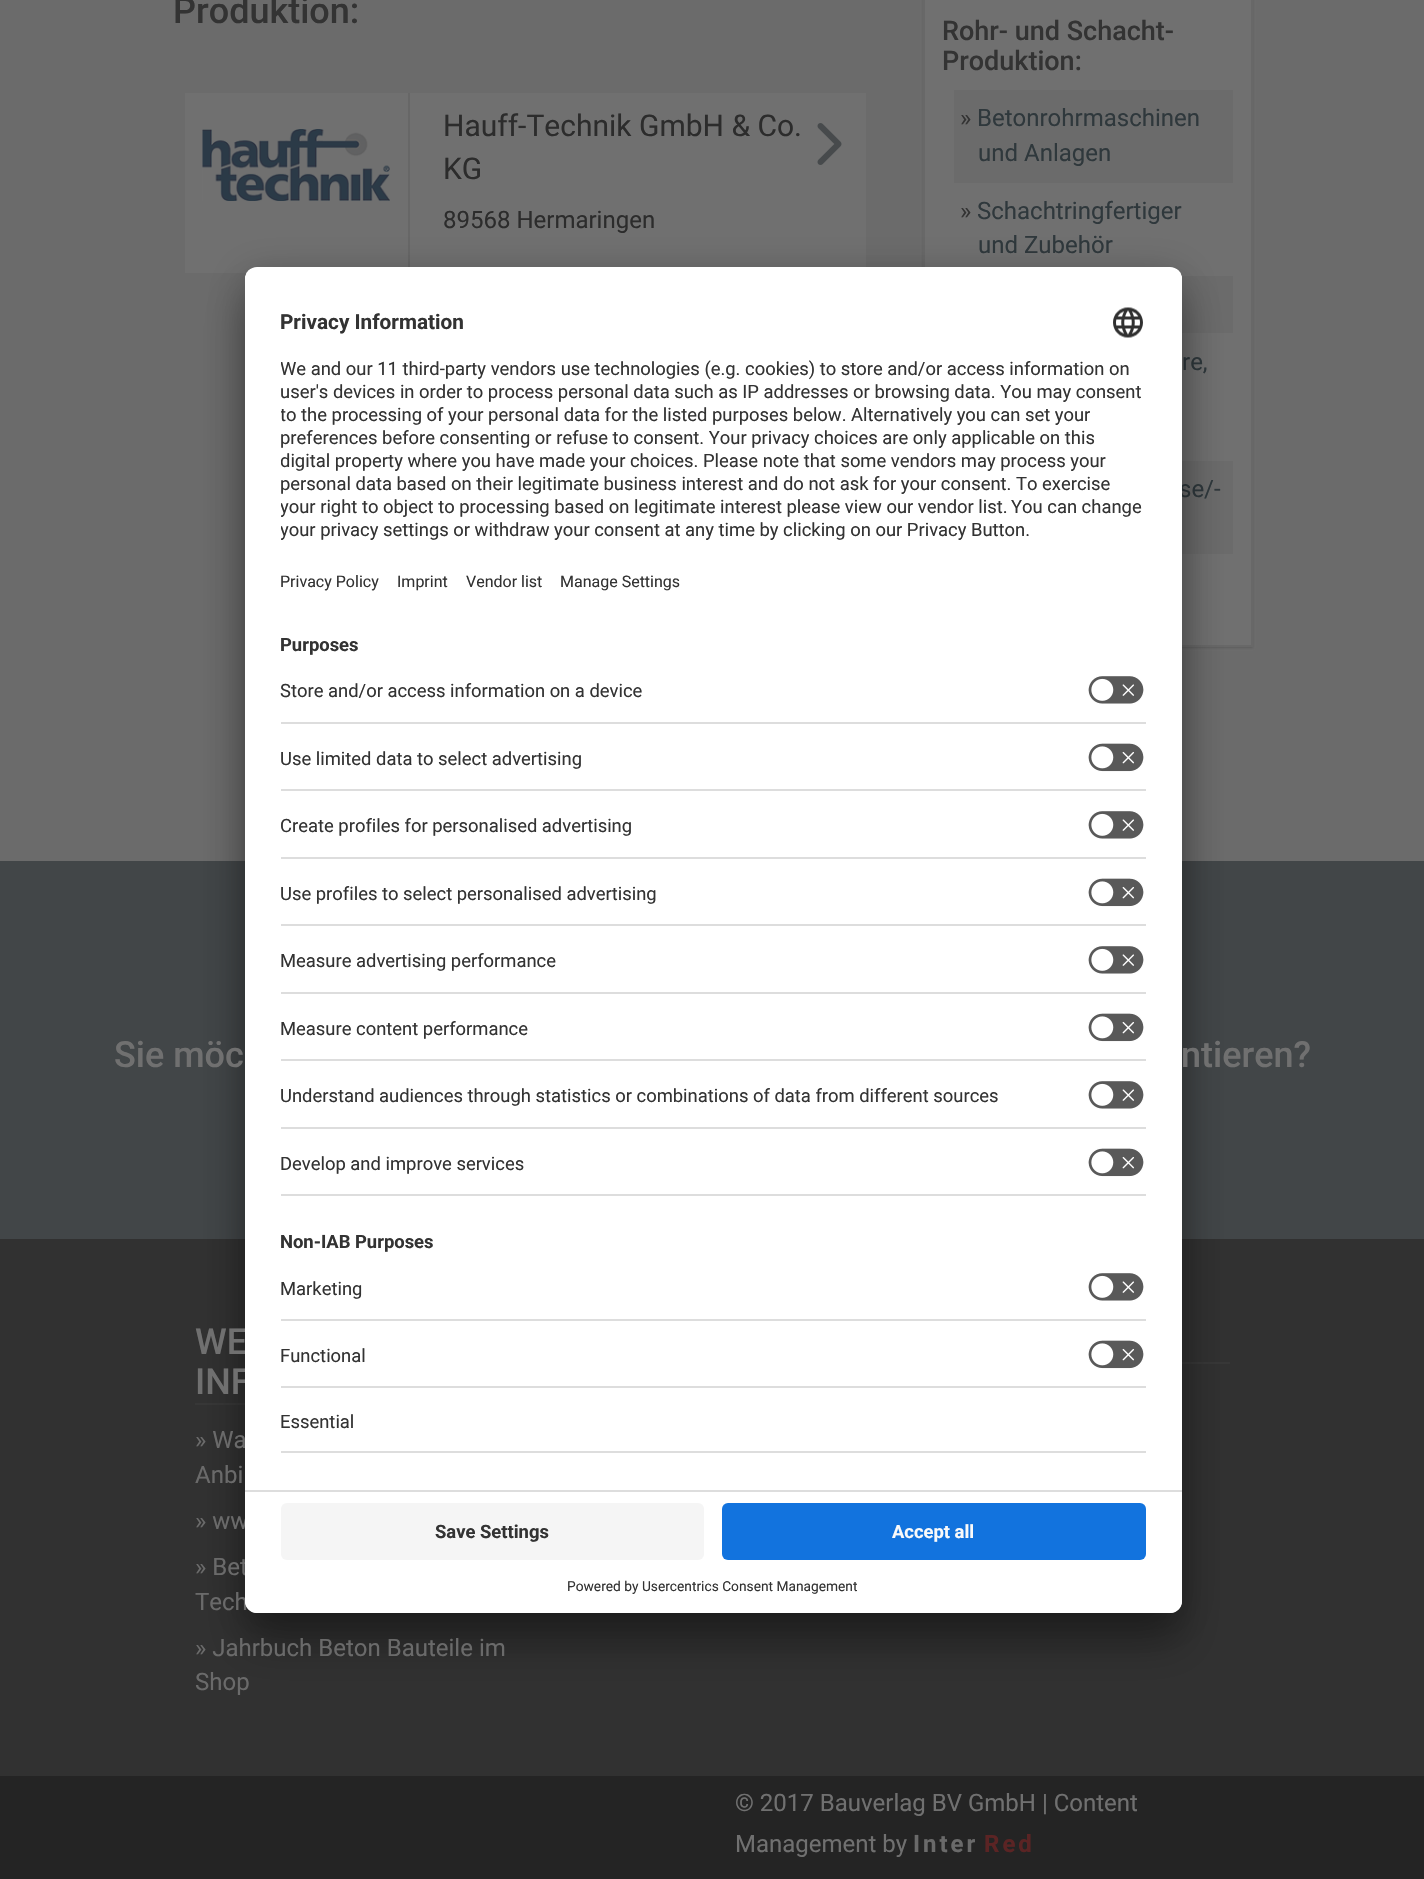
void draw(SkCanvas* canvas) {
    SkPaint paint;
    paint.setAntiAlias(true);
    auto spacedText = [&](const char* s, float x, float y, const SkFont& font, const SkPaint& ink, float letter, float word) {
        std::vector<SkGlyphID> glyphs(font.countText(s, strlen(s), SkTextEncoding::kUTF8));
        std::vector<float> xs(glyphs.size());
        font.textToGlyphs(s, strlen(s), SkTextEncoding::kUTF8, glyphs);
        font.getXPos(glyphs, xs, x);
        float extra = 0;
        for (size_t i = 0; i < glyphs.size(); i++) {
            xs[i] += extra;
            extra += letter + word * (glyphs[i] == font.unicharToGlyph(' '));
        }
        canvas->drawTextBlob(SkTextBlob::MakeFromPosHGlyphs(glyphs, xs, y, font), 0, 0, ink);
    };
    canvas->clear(0xFF242424);
    paint.setColor(0xFF6B6B6B);
    canvas->drawRect(SkRect::MakeXYWH(0, 0, 1424, 861), paint);
    SkFont font1(fontMgr->matchFamilyStyle("Roboto", SkFontStyle(500, SkFontStyle::kNormal_Width, SkFontStyle::kUpright_Slant)), 36);
    font1.setSubpixel(true);
    paint.setColor(0xFF333333);
    canvas->drawString("Produktion:", 173, 23, font1, paint);
    paint.setColor(0xFF707070);
    canvas->drawRect(SkRect::MakeXYWH(185, 93, 681, 180), paint);
    paint.setColor(0xFF676767);
    canvas->drawRect(SkRect::MakeXYWH(408, 93, 2, 180), paint);
    canvas->drawImageRect(SkImages::DeferredFromEncodedData(SkData::MakeFromFileName("img1.png")), SkRect::MakeXYWH(202, 129, 188, 72), SkSamplingOptions());
    SkFont font2(fontMgr->matchFamilyStyle("Roboto", SkFontStyle::Normal()), 30);
    font2.setSubpixel(true);
    paint.setColor(0xFF2C2C2C);
    canvas->drawString("Hauff-Technik GmbH & Co.", 443, 136, font2, paint);
    canvas->drawImageRect(SkImages::DeferredFromEncodedData(SkData::MakeFromFileName("img2.png")), SkRect::MakeXYWH(817, 123, 25, 42), SkSamplingOptions());
    canvas->drawString("KG", 443, 179, font2, paint);
    SkFont font3(fontMgr->matchFamilyStyle("Roboto", SkFontStyle::Normal()), 24);
    font3.setSubpixel(true);
    canvas->drawString("89568 Hermaringen", 443, 228, font3, paint);
    paint.setColor(0x33242424);
    paint.setMaskFilter(SkMaskFilter::MakeBlur(kNormal_SkBlurStyle, 1));
    canvas->drawRect(SkRect::MakeXYWH(923, -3, 330, 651), paint);
    paint.setMaskFilter(nullptr);
    paint.setColor(0xFF707070);
    canvas->drawRect(SkRect::MakeXYWH(924, -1, 328, 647), paint);
    paint.setStyle(SkPaint::kStroke_Style);
    paint.setStrokeWidth(2);
    paint.setColor(0xFF686868);
    canvas->drawRect(SkRect::MakeXYWH(924, -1, 328, 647), paint);
    SkFont font4(fontMgr->matchFamilyStyle("Roboto", SkFontStyle(500, SkFontStyle::kNormal_Width, SkFontStyle::kUpright_Slant)), 27);
    font4.setSubpixel(true);
    paint.setStyle(SkPaint::kFill_Style);
    paint.setColor(0xFF333333);
    canvas->drawString("Rohr- und Schacht-", 942, 40, font4, paint);
    canvas->drawString("Produktion:", 942, 70, font4, paint);
    paint.setColor(0xFF6B6B6B);
    canvas->drawRect(SkRect::MakeXYWH(954, 90, 279, 93), paint);
    paint.setColor(0xFF333333);
    canvas->drawString("»", 960, 126, font3, paint);
    paint.setColor(0xFF2F383C);
    canvas->drawString("Betonrohrmaschinen", 977, 126, font3, paint);
    canvas->drawString("und Anlagen", 978, 161, font3, paint);
    paint.setColor(0xFF333333);
    canvas->drawString("»", 960, 219, font3, paint);
    paint.setColor(0xFF2F383C);
    canvas->drawString("Schachtringfertiger", 977, 219, font3, paint);
    canvas->drawString("und Zubehör", 978, 253, font3, paint);
    paint.setColor(0xFF6B6B6B);
    canvas->drawRect(SkRect::MakeXYWH(1181, 276, 52, 57), paint);
    paint.setColor(0xFF2F383C);
    canvas->drawString("re,", 1182, 370, font3, paint);
    paint.setColor(0xFF6B6B6B);
    canvas->drawRect(SkRect::MakeXYWH(1182, 461, 51, 93), paint);
    paint.setColor(0xFF2F383C);
    canvas->drawString("se/-", 1179, 497, font3, paint);
    paint.setColor(0xFF424648);
    canvas->drawRect(SkRect::MakeXYWH(0, 861, 1424, 378), paint);
    paint.setColor(0xFF313131);
    canvas->drawRect(SkRect::MakeXYWH(0, 1239, 1424, 537), paint);
    paint.setColor(0xFF373737);
    canvas->drawRect(SkRect::MakeXYWH(195, 1403, 50, 2), paint);
    canvas->drawRect(SkRect::MakeXYWH(1182, 1362, 48, 2), paint);
    paint.setColor(0x4D000000);
    paint.setMaskFilter(SkMaskFilter::MakeBlur(kNormal_SkBlurStyle, 21));
    canvas->drawRoundRect(SkRect::MakeXYWH(245, 297, 937, 1346), 12, 12, paint);
    paint.setMaskFilter(nullptr);
    paint.setColor(0x38000000);
    paint.setMaskFilter(SkMaskFilter::MakeBlur(kNormal_SkBlurStyle, 19.5f));
    canvas->drawRoundRect(SkRect::MakeXYWH(245, 275, 937, 1345), 12, 12, paint);
    paint.setMaskFilter(nullptr);
    paint.setColor(0xFF707070);
    canvas->drawString("WE", 195, 1354, font1, paint);
    canvas->drawString("INF", 195, 1394, font1, paint);
    paint.setColor(0xFF6A6A6A);
    canvas->drawString("» Wa", 195, 1448, font3, paint);
    canvas->drawString("» ww", 195, 1529, font3, paint);
    canvas->drawString("» Bet", 195, 1575, font3, paint);
    canvas->drawString("Tech", 195, 1610, font3, paint);
    paint.setColor(0xFFFFFFFF);
    canvas->drawRoundRect(SkRect::MakeXYWH(245, 267, 937, 1346), 12, 12, paint);
    canvas->save();
    canvas->clipPath(SkPathBuilder().moveTo(257, 267).lineTo(1170, 267).cubicTo(1176.5f, 267, 1182, 272.5f, 1182, 279).lineTo(1182, 1601).cubicTo(1182, 1607.5f, 1176.5f, 1613, 1170, 1613).lineTo(257, 1613).cubicTo(250.5f, 1613, 245, 1607.5f, 245, 1601).lineTo(245, 279).cubicTo(245, 272.5f, 250.5f, 267, 257, 267).close().detach(), true);
    canvas->clipPath(SkPathBuilder().moveTo(257, 267).lineTo(1170, 267).cubicTo(1176.5f, 267, 1182, 272.5f, 1182, 279).lineTo(1182, 1490).lineTo(245, 1490).lineTo(245, 279).cubicTo(245, 272.5f, 250.5f, 267, 257, 267).close().detach(), true);
    canvas->drawRect(SkRect::MakeXYWH(245, 269, 937, 1221), paint);
    canvas->drawRect(SkRect::MakeXYWH(245, 269, 937, 348), paint);
    canvas->restore();
    SkFont font5(fontMgr->matchFamilyStyle("Roboto", SkFontStyle::Bold()), 20.75f);
    font5.setSubpixel(true);
    paint.setColor(0xFF333333);
    canvas->drawString("Privacy Information", 280, 329, font5, paint);
    canvas->drawImageRect(SkImages::DeferredFromEncodedData(SkData::MakeFromFileName("img3.png")), SkRect::MakeXYWH(1113, 307, 30, 31), SkSamplingOptions());
    canvas->save();
    canvas->clipRect(SkRect::MakeXYWH(281, 353, 865, 195));
    SkFont font6(fontMgr->matchFamilyStyle("Roboto", SkFontStyle::Normal()), 18.4f);
    font6.setSubpixel(true);
    canvas->drawString("We and our 11 third-party vendors use technologies (e.g. cookies) to store and/or access information on", 280, 375, font6, paint);
    canvas->restore();
    canvas->drawString("user's devices in order to process personal data such as IP addresses or browsing data. You may consent", 280, 398, font6, paint);
    canvas->save();
    canvas->clipRect(SkRect::MakeXYWH(281, 353, 865, 195));
    canvas->drawString("to the processing of your personal data for the listed purposes below. Alternatively you can set your", 280, 421, font6, paint);
    canvas->restore();
    canvas->drawString("preferences before consenting or refuse to consent. Your privacy choices are only applicable on this", 280, 444, font6, paint);
    canvas->save();
    canvas->clipRect(SkRect::MakeXYWH(281, 353, 865, 195));
    canvas->drawString("digital property where you have made your choices. Please note that some vendors may process your", 280, 467, font6, paint);
    canvas->restore();
    canvas->drawString("personal data based on their legitimate business interest and do not ask for your consent. To exercise", 280, 490, font6, paint);
    canvas->save();
    canvas->clipRect(SkRect::MakeXYWH(281, 353, 865, 195));
    canvas->drawString("your right to object to processing based on legitimate interest please view our vendor list.", 280, 513, font6, paint);
    canvas->restore();
    canvas->drawString("You can change", 1011, 513, font6, paint);
    canvas->save();
    canvas->clipRect(SkRect::MakeXYWH(281, 353, 865, 195));
    canvas->drawString("your privacy settings or withdraw your consent at any time by clicking on our Privacy Button.", 280, 536, font6, paint);
    canvas->restore();
    SkFont font7(fontMgr->matchFamilyStyle("Roboto", SkFontStyle::Normal()), 16);
    font7.setSubpixel(true);
    canvas->drawString("Privacy Policy", 280, 587, font7, paint);
    canvas->drawString("Imprint", 397, 587, font7, paint);
    canvas->drawString("Vendor list", 466, 587, font7, paint);
    canvas->drawString("Manage Settings", 560, 587, font7, paint);
    SkFont font8(fontMgr->matchFamilyStyle("Roboto", SkFontStyle::Bold()), 18.4f);
    font8.setSubpixel(true);
    canvas->drawString("Purposes", 280, 651, font8, paint);
    paint.setColor(0xFFDDDDDD);
    canvas->drawRect(SkRect::MakeXYWH(281, 722, 865, 2), paint);
    paint.setColor(0xFF333333);
    canvas->drawString("Store and/or access information on a device", 280, 697, font6, paint);
    canvas->drawImageRect(SkImages::DeferredFromEncodedData(SkData::MakeFromFileName("img4.png")), SkRect::MakeXYWH(1088, 676, 56, 28), SkSamplingOptions());
    paint.setColor(0xFFDDDDDD);
    canvas->drawRect(SkRect::MakeXYWH(281, 789, 865, 2), paint);
    paint.setColor(0xFF333333);
    canvas->drawString("Use limited data to select advertising", 280, 765, font6, paint);
    canvas->drawImageRect(SkImages::DeferredFromEncodedData(SkData::MakeFromFileName("img5.png")), SkRect::MakeXYWH(1088, 743, 56, 29), SkSamplingOptions());
    paint.setColor(0xFFDDDDDD);
    canvas->drawRect(SkRect::MakeXYWH(281, 857, 865, 2), paint);
    paint.setColor(0xFF333333);
    canvas->drawString("Create profiles for personalised advertising", 280, 832, font6, paint);
    canvas->drawImageRect(SkImages::DeferredFromEncodedData(SkData::MakeFromFileName("img4.png")), SkRect::MakeXYWH(1088, 811, 56, 28), SkSamplingOptions());
    paint.setColor(0xFFDDDDDD);
    canvas->drawRect(SkRect::MakeXYWH(281, 924, 865, 2), paint);
    paint.setColor(0xFF333333);
    canvas->drawString("Use profiles to select personalised advertising", 280, 900, font6, paint);
    canvas->drawImageRect(SkImages::DeferredFromEncodedData(SkData::MakeFromFileName("img5.png")), SkRect::MakeXYWH(1088, 878, 56, 29), SkSamplingOptions());
    paint.setColor(0xFFDDDDDD);
    canvas->drawRect(SkRect::MakeXYWH(281, 992, 865, 2), paint);
    paint.setColor(0xFF333333);
    canvas->drawString("Measure advertising performance", 280, 967, font6, paint);
    canvas->drawImageRect(SkImages::DeferredFromEncodedData(SkData::MakeFromFileName("img4.png")), SkRect::MakeXYWH(1088, 946, 56, 28), SkSamplingOptions());
    paint.setColor(0xFFDDDDDD);
    canvas->drawRect(SkRect::MakeXYWH(281, 1059, 865, 2), paint);
    paint.setColor(0xFF333333);
    canvas->drawString("Measure content performance", 280, 1035, font6, paint);
    canvas->drawImageRect(SkImages::DeferredFromEncodedData(SkData::MakeFromFileName("img5.png")), SkRect::MakeXYWH(1088, 1013, 56, 29), SkSamplingOptions());
    paint.setColor(0xFFDDDDDD);
    canvas->drawRect(SkRect::MakeXYWH(281, 1127, 865, 2), paint);
    paint.setColor(0xFF333333);
    canvas->drawString("Understand audiences through statistics or combinations of data from different sources", 280, 1102, font6, paint);
    canvas->drawImageRect(SkImages::DeferredFromEncodedData(SkData::MakeFromFileName("img4.png")), SkRect::MakeXYWH(1088, 1081, 56, 28), SkSamplingOptions());
    paint.setColor(0xFFDDDDDD);
    canvas->drawRect(SkRect::MakeXYWH(281, 1194, 865, 2), paint);
    paint.setColor(0xFF333333);
    canvas->drawString("Develop and improve services", 280, 1170, font6, paint);
    canvas->drawImageRect(SkImages::DeferredFromEncodedData(SkData::MakeFromFileName("img5.png")), SkRect::MakeXYWH(1088, 1148, 56, 29), SkSamplingOptions());
    canvas->drawString("Non-IAB Purposes", 280, 1248, font8, paint);
    paint.setColor(0xFFDDDDDD);
    canvas->drawRect(SkRect::MakeXYWH(281, 1319, 865, 2), paint);
    paint.setColor(0xFF333333);
    canvas->drawString("Marketing", 280, 1295, font6, paint);
    canvas->drawImageRect(SkImages::DeferredFromEncodedData(SkData::MakeFromFileName("img4.png")), SkRect::MakeXYWH(1088, 1273, 56, 28), SkSamplingOptions());
    paint.setColor(0xFFDDDDDD);
    canvas->drawRect(SkRect::MakeXYWH(281, 1386, 865, 2), paint);
    paint.setColor(0xFF333333);
    canvas->drawString("Functional", 280, 1362, font6, paint);
    canvas->drawImageRect(SkImages::DeferredFromEncodedData(SkData::MakeFromFileName("img5.png")), SkRect::MakeXYWH(1088, 1340, 56, 29), SkSamplingOptions());
    paint.setColor(0xFFDDDDDD);
    canvas->drawRect(SkRect::MakeXYWH(281, 1451, 865, 2), paint);
    paint.setColor(0xFF333333);
    canvas->drawString("Essential", 280, 1428, font6, paint);
    paint.setColor(0xFFFFFFFF);
    canvas->drawPath(SkPathBuilder().moveTo(245, 1490).lineTo(1182, 1490).lineTo(1182, 1601).cubicTo(1182, 1607.5f, 1176.5f, 1613, 1170, 1613).lineTo(257, 1613).cubicTo(250.5f, 1613, 245, 1607.5f, 245, 1601).close().detach(), paint);
    paint.setColor(0xFFDDDDDD);
    canvas->drawRect(SkRect::MakeXYWH(245, 1490, 937, 2), paint);
    paint.setColor(0xFFF5F5F5);
    canvas->drawRoundRect(SkRect::MakeXYWH(281, 1503, 423, 57), 6, 6, paint);
    paint.setColor(0xFF333333);
    canvas->drawString("Save Settings", 435, 1538, font8, paint);
    paint.setColor(0xFF1273DE);
    canvas->drawRoundRect(SkRect::MakeXYWH(722, 1503, 424, 57), 6, 6, paint);
    paint.setColor(0xFFFAFAFA);
    canvas->drawString("Accept all", 892, 1538, font8, paint);
    SkFont font9(fontMgr->matchFamilyStyle("Roboto", SkFontStyle::Normal()), 13.75f);
    font9.setSubpixel(true);
    paint.setColor(0xFF333333);
    canvas->drawString("Powered by Usercentrics Consent Management", 567, 1591, font9, paint);
    paint.setColor(0xFF707070);
    canvas->drawString("Sie möc", 114, 1067, font1, paint);
    canvas->drawString("ntieren?", 1181, 1067, font1, paint);
    paint.setColor(0xFF6A6A6A);
    canvas->drawString("Anbi", 195, 1483, font3, paint);
    canvas->drawString("» Jahrbuch Beton Bauteile im", 195, 1656, font3, paint);
    canvas->drawString("Shop", 195, 1690, font3, paint);
    paint.setColor(0xFF707070);
    canvas->drawString("© 2017 Bauverlag BV GmbH | Content", 735, 1811, font3, paint);
    canvas->drawString("Management by", 735, 1852, font3, paint);
    SkFont font10(fontMgr->matchFamilyStyle("Roboto", SkFontStyle::Bold()), 24);
    font10.setSubpixel(true);
    paint.setColor(0xFF6A6A6A);
    spacedText("Inter", 913, 1852, font10, paint, 3, 0);
    paint.setColor(0xFF5B2424);
    spacedText("Red", 984, 1852, font10, paint, 3, 0);
}
